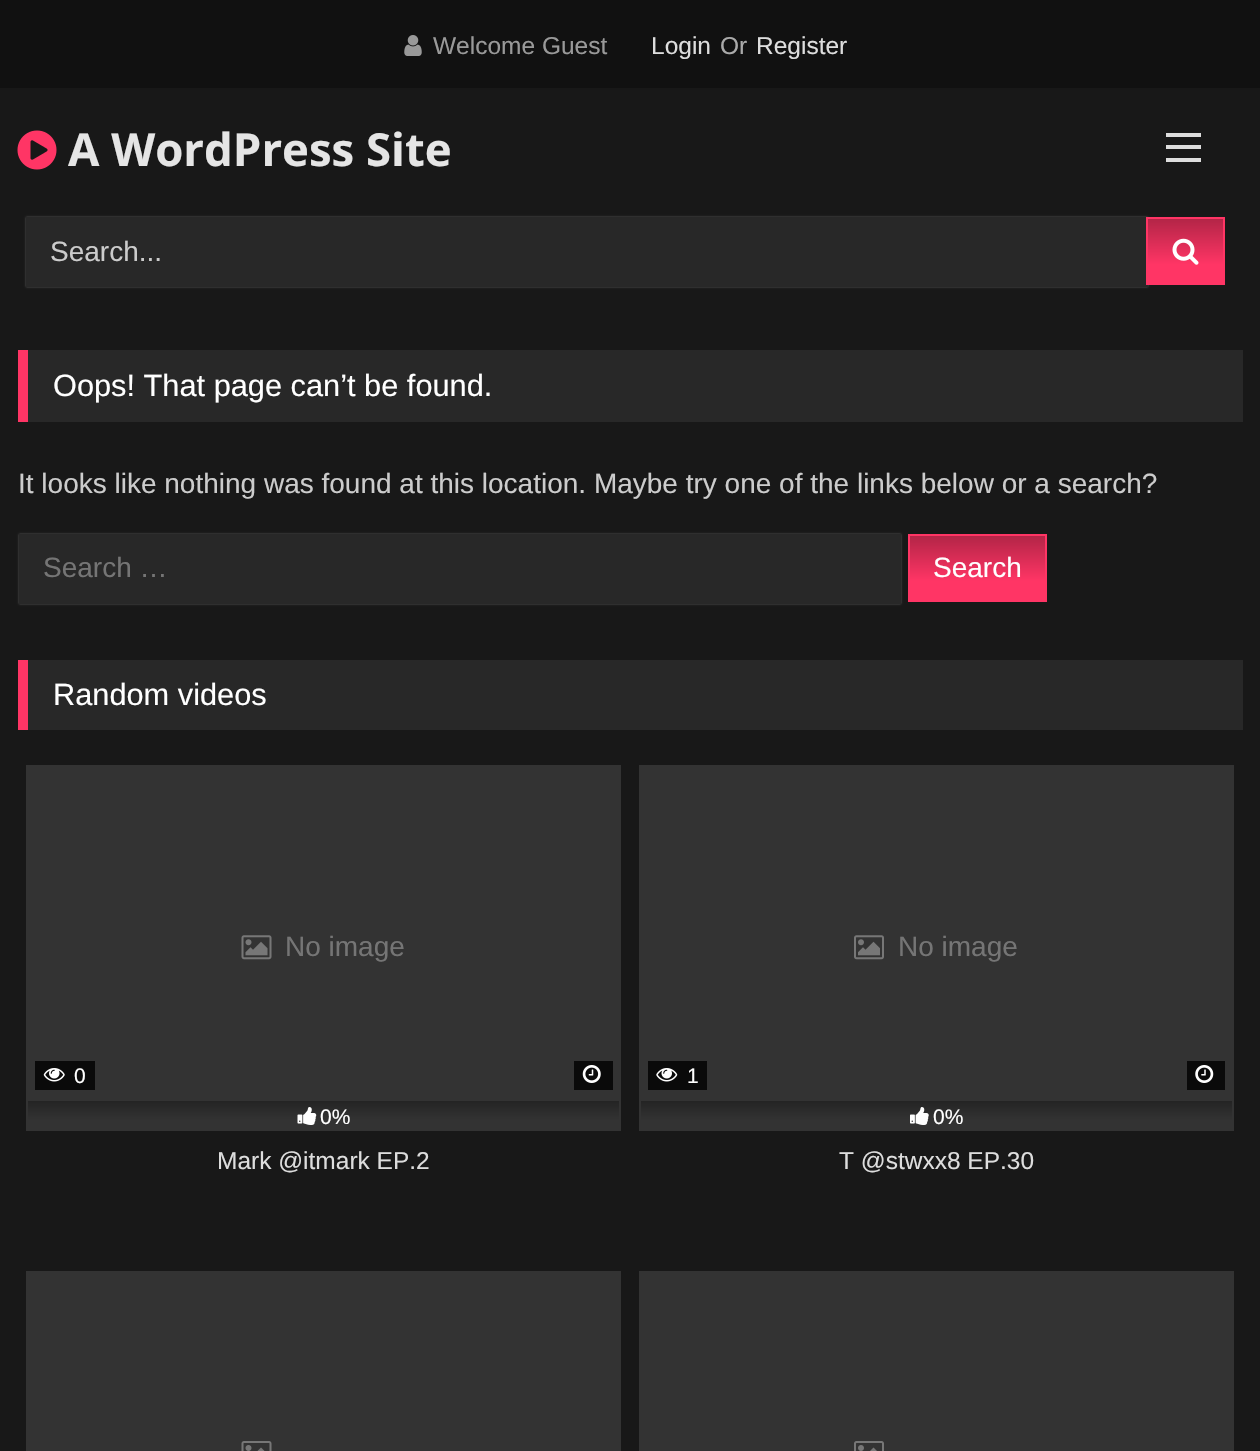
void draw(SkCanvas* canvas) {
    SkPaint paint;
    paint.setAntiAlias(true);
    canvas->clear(0xFF181818);
    paint.setColor(0xFF111111);
    canvas->drawRect(SkRect::MakeXYWH(0, 0, 1260, 88), paint);
    canvas->drawImageRect(SkImages::DeferredFromEncodedData(SkData::MakeFromFileName("img1.png")), SkRect::MakeXYWH(404, 35, 18, 21), SkSamplingOptions());
    SkFont font1(fontMgr->matchFamilyStyle("Liberation Sans", SkFontStyle::Normal()), 24.5f);
    font1.setSubpixel(true);
    paint.setColor(0xFF999999);
    canvas->drawString("Welcome Guest", 433, 54, font1, paint);
    paint.setColor(0xFFDDDDDD);
    canvas->drawString("Login", 651, 54, font1, paint);
    paint.setColor(0xFFAAAAAA);
    canvas->drawString("Or", 720, 54, font1, paint);
    paint.setColor(0xFFDDDDDD);
    canvas->drawString("Register", 756, 54, font1, paint);
    canvas->drawImageRect(SkImages::DeferredFromEncodedData(SkData::MakeFromFileName("img2.png")), SkRect::MakeXYWH(17, 130, 40, 40), SkSamplingOptions());
    SkFont font2(fontMgr->matchFamilyStyle("Open Sans", SkFontStyle::Bold()), 45.5f);
    font2.setSubpixel(true);
    paint.setColor(0xFFE5E5E5);
    canvas->drawString("A WordPress Site", 68, 166, font2, paint);
    paint.setColor(0x4DFFFFFF);
    paint.setMaskFilter(SkMaskFilter::MakeBlur(kNormal_SkBlurStyle, 1));
    canvas->drawRect(SkRect::MakeXYWH(26, 217, 1122, 70), paint);
    paint.setMaskFilter(nullptr);
    paint.setColor(0xFF282828);
    canvas->drawRect(SkRect::MakeXYWH(26, 217, 1122, 70), paint);
    SkFont font3(fontMgr->matchFamilyStyle("Liberation Sans", SkFontStyle::Normal()), 28);
    font3.setSubpixel(true);
    paint.setColor(0xFFCCCCCC);
    canvas->drawString("Search...", 50, 261, font3, paint);
    {
        const SkColor colors[] = {0xFFB32547, 0xFFFF3565};
        const float stops[] = {0, 0.7f};
        const SkPoint ends[] = {{1186, 219}, {1186, 284}};
        paint.setShader(SkGradientShader::MakeLinear(ends, colors, stops, 2, SkTileMode::kClamp));
        paint.setAlpha(255);
    }
    canvas->drawRect(SkRect::MakeXYWH(1148, 219, 75, 64), paint);
    paint.setStyle(SkPaint::kStroke_Style);
    paint.setStrokeWidth(2);
    paint.setShader(nullptr);
    paint.setColor(0xFFFF3565);
    canvas->drawRect(SkRect::MakeXYWH(1147, 218, 77, 66), paint);
    canvas->drawImageRect(SkImages::DeferredFromEncodedData(SkData::MakeFromFileName("img3.png")), SkRect::MakeXYWH(1172, 238, 27, 27), SkSamplingOptions());
    paint.setStyle(SkPaint::kFill_Style);
    paint.setColor(0xFFDDDDDD);
    canvas->drawRect(SkRect::MakeXYWH(1166, 133, 35, 4), paint);
    canvas->drawRect(SkRect::MakeXYWH(1166, 145, 35, 4), paint);
    canvas->drawRect(SkRect::MakeXYWH(1166, 158, 35, 4), paint);
    paint.setColor(0xFF282828);
    canvas->drawRect(SkRect::MakeXYWH(28, 350, 1215, 72), paint);
    paint.setColor(0xFFFF3565);
    canvas->drawRect(SkRect::MakeXYWH(18, 350, 10, 72), paint);
    SkFont font4(fontMgr->matchFamilyStyle("Liberation Sans", SkFontStyle::Normal()), 30.75f);
    font4.setSubpixel(true);
    paint.setColor(0xFFFFFFFF);
    canvas->drawString("Oops! That page can’t be found.", 53, 396, font4, paint);
    paint.setColor(0xFFCCCCCC);
    canvas->drawString("It looks like nothing was found at this location. Maybe try one of the links below or a search?", 18, 493, font3, paint);
    paint.setColor(0x4DFFFFFF);
    paint.setMaskFilter(SkMaskFilter::MakeBlur(kNormal_SkBlurStyle, 1));
    canvas->drawRect(SkRect::MakeXYWH(19, 534, 882, 70), paint);
    paint.setMaskFilter(nullptr);
    paint.setColor(0xFF282828);
    canvas->drawRect(SkRect::MakeXYWH(19, 534, 882, 70), paint);
    paint.setColor(0xFF757575);
    canvas->drawString("Search …", 43, 577, font3, paint);
    {
        const SkColor colors[] = {0xFFB32547, 0xFFFF3565};
        const float stops[] = {0, 0.7f};
        const SkPoint ends[] = {{977, 536}, {977, 600}};
        paint.setShader(SkGradientShader::MakeLinear(ends, colors, stops, 2, SkTileMode::kClamp));
        paint.setAlpha(255);
    }
    canvas->drawRect(SkRect::MakeXYWH(910, 536, 135, 64), paint);
    paint.setStyle(SkPaint::kStroke_Style);
    paint.setShader(nullptr);
    paint.setColor(0xFFFF3565);
    canvas->drawRect(SkRect::MakeXYWH(909, 535, 137, 66), paint);
    paint.setStyle(SkPaint::kFill_Style);
    paint.setColor(0xFFFFFFFF);
    canvas->drawString("Search", 933, 577, font3, paint);
    paint.setColor(0xFF282828);
    canvas->drawRect(SkRect::MakeXYWH(28, 660, 1215, 70), paint);
    paint.setColor(0xFFFF3565);
    canvas->drawRect(SkRect::MakeXYWH(18, 660, 10, 70), paint);
    paint.setColor(0xFFFFFFFF);
    canvas->drawString("Random videos", 53, 705, font4, paint);
    paint.setColor(0xFF333333);
    canvas->drawRect(SkRect::MakeXYWH(26, 765, 595, 334), paint);
    canvas->drawImageRect(SkImages::DeferredFromEncodedData(SkData::MakeFromFileName("img4.png")), SkRect::MakeXYWH(241, 935, 31, 25), SkSamplingOptions());
    paint.setColor(0xFF757575);
    canvas->drawString("No image", 285, 956, font3, paint);
    paint.setColor(0xFF0A0A0A);
    canvas->drawRect(SkRect::MakeXYWH(35, 1061, 60, 29), paint);
    canvas->drawImageRect(SkImages::DeferredFromEncodedData(SkData::MakeFromFileName("img5.png")), SkRect::MakeXYWH(43, 1068, 22, 14), SkSamplingOptions());
    SkFont font5(fontMgr->matchFamilyStyle("Liberation Sans", SkFontStyle::Normal()), 21);
    font5.setSubpixel(true);
    paint.setColor(0xFFFFFFFF);
    canvas->drawString("0", 74, 1083, font5, paint);
    paint.setColor(0xFF0A0A0A);
    canvas->drawRect(SkRect::MakeXYWH(574, 1061, 39, 29), paint);
    canvas->drawImageRect(SkImages::DeferredFromEncodedData(SkData::MakeFromFileName("img6.png")), SkRect::MakeXYWH(582, 1065, 19, 18), SkSamplingOptions());
    {
        const SkColor colors[] = {0xFF242424, 0xFF333333};
        const float stops[] = {0, 0.7f};
        const SkPoint ends[] = {{324, 1101}, {324, 1129}};
        paint.setShader(SkGradientShader::MakeLinear(ends, colors, stops, 2, SkTileMode::kClamp));
        paint.setAlpha(255);
    }
    canvas->drawRect(SkRect::MakeXYWH(28, 1101, 591, 28), paint);
    paint.setStyle(SkPaint::kStroke_Style);
    paint.setShader(nullptr);
    paint.setColor(0xFF333333);
    canvas->drawRect(SkRect::MakeXYWH(27, 1100, 593, 30), paint);
    canvas->drawImageRect(SkImages::DeferredFromEncodedData(SkData::MakeFromFileName("img7.png")), SkRect::MakeXYWH(297, 1107, 20, 18), SkSamplingOptions());
    paint.setStyle(SkPaint::kFill_Style);
    paint.setColor(0xFFFFFFFF);
    canvas->drawString("0%", 320, 1124, font5, paint);
    paint.setColor(0xFFDDDDDD);
    canvas->drawString("Mark @itmark EP.2", 217, 1169, font1, paint);
    paint.setColor(0xFF333333);
    canvas->drawRect(SkRect::MakeXYWH(639, 765, 595, 334), paint);
    canvas->drawImageRect(SkImages::DeferredFromEncodedData(SkData::MakeFromFileName("img8.png")), SkRect::MakeXYWH(854, 935, 30, 25), SkSamplingOptions());
    paint.setColor(0xFF757575);
    canvas->drawString("No image", 898, 956, font3, paint);
    paint.setColor(0xFF0A0A0A);
    canvas->drawRect(SkRect::MakeXYWH(648, 1061, 59, 29), paint);
    canvas->drawImageRect(SkImages::DeferredFromEncodedData(SkData::MakeFromFileName("img9.png")), SkRect::MakeXYWH(656, 1068, 22, 14), SkSamplingOptions());
    paint.setColor(0xFFFFFFFF);
    canvas->drawString("1", 687, 1083, font5, paint);
    paint.setColor(0xFF0A0A0A);
    canvas->drawRect(SkRect::MakeXYWH(1187, 1061, 38, 29), paint);
    canvas->drawImageRect(SkImages::DeferredFromEncodedData(SkData::MakeFromFileName("img10.png")), SkRect::MakeXYWH(1195, 1065, 19, 18), SkSamplingOptions());
    {
        const SkColor colors[] = {0xFF242424, 0xFF333333};
        const float stops[] = {0, 0.7f};
        const SkPoint ends[] = {{936, 1101}, {936, 1129}};
        paint.setShader(SkGradientShader::MakeLinear(ends, colors, stops, 2, SkTileMode::kClamp));
        paint.setAlpha(255);
    }
    canvas->drawRect(SkRect::MakeXYWH(641, 1101, 591, 28), paint);
    paint.setStyle(SkPaint::kStroke_Style);
    paint.setShader(nullptr);
    paint.setColor(0xFF333333);
    canvas->drawRect(SkRect::MakeXYWH(640, 1100, 593, 30), paint);
    canvas->drawImageRect(SkImages::DeferredFromEncodedData(SkData::MakeFromFileName("img11.png")), SkRect::MakeXYWH(910, 1107, 19, 18), SkSamplingOptions());
    paint.setStyle(SkPaint::kFill_Style);
    paint.setColor(0xFFFFFFFF);
    canvas->drawString("0%", 933, 1124, font5, paint);
    paint.setColor(0xFFDDDDDD);
    canvas->drawString("T @stwxx8 EP.30", 839, 1169, font1, paint);
    paint.setColor(0xFF333333);
    canvas->drawRect(SkRect::MakeXYWH(26, 1271, 595, 180), paint);
    canvas->drawImageRect(SkImages::DeferredFromEncodedData(SkData::MakeFromFileName("img12.png")), SkRect::MakeXYWH(241, 1441, 31, 10), SkSamplingOptions());
    canvas->drawRect(SkRect::MakeXYWH(639, 1271, 595, 180), paint);
    canvas->drawImageRect(SkImages::DeferredFromEncodedData(SkData::MakeFromFileName("img13.png")), SkRect::MakeXYWH(854, 1441, 30, 10), SkSamplingOptions());
}
